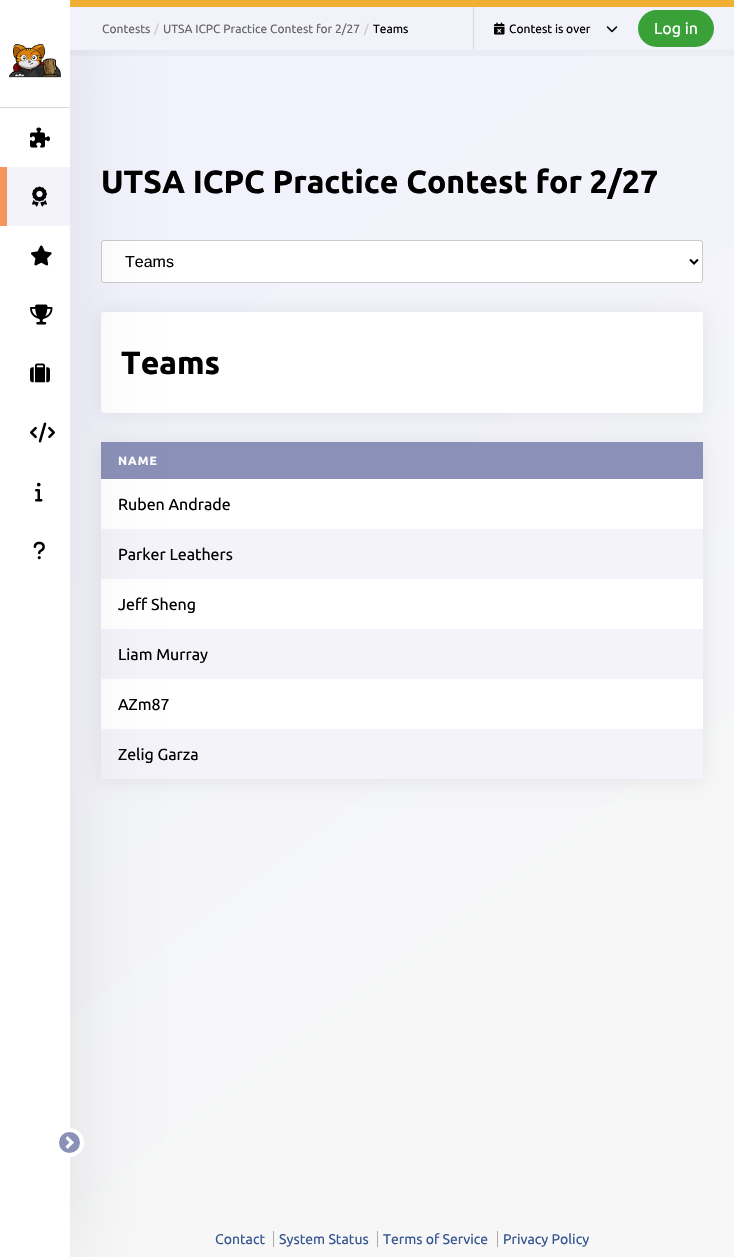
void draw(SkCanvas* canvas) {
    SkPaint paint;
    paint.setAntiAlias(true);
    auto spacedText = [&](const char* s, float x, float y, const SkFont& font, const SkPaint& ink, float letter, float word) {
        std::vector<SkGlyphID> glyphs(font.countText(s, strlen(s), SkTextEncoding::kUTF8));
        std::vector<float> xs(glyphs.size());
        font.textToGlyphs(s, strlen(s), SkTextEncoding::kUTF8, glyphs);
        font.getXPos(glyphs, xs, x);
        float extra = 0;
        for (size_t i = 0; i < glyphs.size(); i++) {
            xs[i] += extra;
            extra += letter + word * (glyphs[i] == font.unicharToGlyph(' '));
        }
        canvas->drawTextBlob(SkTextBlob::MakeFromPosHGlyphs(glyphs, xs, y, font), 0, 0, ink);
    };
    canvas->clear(0xFFFFFFFF);
    {
        const SkColor colors[] = {0xFFF1F2FC, 0xFFF7F7F7};
        const float stops[] = {0.22f, 0.75f};
        const SkPoint ends[] = {{-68, 51}, {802, 1206}};
        paint.setShader(SkGradientShader::MakeLinear(ends, colors, stops, 2, SkTileMode::kClamp));
        paint.setAlpha(255);
    }
    canvas->drawRect(SkRect::MakeXYWH(70, 50, 664, 1207), paint);
    paint.setShader(nullptr);
    paint.setColor(0x14000000);
    paint.setMaskFilter(SkMaskFilter::MakeBlur(kNormal_SkBlurStyle, 10));
    canvas->drawRoundRect(SkRect::MakeXYWH(101, 313, 602, 101), 3, 3, paint);
    paint.setMaskFilter(nullptr);
    paint.setColor(0xFFFFFFFF);
    canvas->drawRoundRect(SkRect::MakeXYWH(101.5f, 240.5f, 601, 42), 2.5f, 2.5f, paint);
    paint.setStyle(SkPaint::kStroke_Style);
    paint.setStrokeWidth(1);
    paint.setColor(0xFFCACACA);
    canvas->drawRoundRect(SkRect::MakeXYWH(101.5f, 240.5f, 601, 42), 2.5f, 2.5f, paint);
    paint.setStyle(SkPaint::kFill_Style);
    paint.setColor(0xFFFFFFFF);
    canvas->drawRoundRect(SkRect::MakeXYWH(101, 312, 602, 101), 3, 3, paint);
    paint.setColor(0x14000000);
    paint.setMaskFilter(SkMaskFilter::MakeBlur(kNormal_SkBlurStyle, 10));
    canvas->drawRoundRect(SkRect::MakeXYWH(101, 443, 602, 337), 3, 3, paint);
    paint.setMaskFilter(nullptr);
    paint.setColor(0xFFFFFFFF);
    canvas->drawRect(SkRect::MakeXYWH(101, 479, 602, 250), paint);
    paint.setColor(0xFF8A90B7);
    canvas->drawRect(SkRect::MakeXYWH(101, 442, 602, 37), paint);
    paint.setColor(0xFFF3F3F9);
    canvas->drawRect(SkRect::MakeXYWH(101, 529, 602, 50), paint);
    canvas->drawRect(SkRect::MakeXYWH(101, 629, 602, 50), paint);
    canvas->drawRect(SkRect::MakeXYWH(101, 729, 602, 50), paint);
    paint.setColor(0x17000000);
    paint.setMaskFilter(SkMaskFilter::MakeBlur(kNormal_SkBlurStyle, 40));
    canvas->drawRect(SkRect::MakeXYWH(0, 2, 70, 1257), paint);
    paint.setMaskFilter(nullptr);
    paint.setColor(0xFFFFFFFF);
    canvas->drawRect(SkRect::MakeXYWH(0, 0, 70, 1257), paint);
    paint.setColor(0xFFD9D9D9);
    canvas->drawRect(SkRect::MakeXYWH(0, 107, 70, 1), paint);
    canvas->drawImageRect(SkImages::DeferredFromEncodedData(SkData::MakeFromFileName("img1.png")), SkRect::MakeXYWH(9, 44, 52, 34), SkSamplingOptions());
    canvas->drawImageRect(SkImages::DeferredFromEncodedData(SkData::MakeFromFileName("img2.png")), SkRect::MakeXYWH(30, 127, 20, 21), SkSamplingOptions());
    paint.setColor(0xFFF3F3F9);
    canvas->drawRect(SkRect::MakeXYWH(7, 167, 63, 59), paint);
    paint.setColor(0xFFF4965E);
    canvas->drawRect(SkRect::MakeXYWH(0, 167, 7, 59), paint);
    canvas->drawImageRect(SkImages::DeferredFromEncodedData(SkData::MakeFromFileName("img3.png")), SkRect::MakeXYWH(32, 186, 15, 21), SkSamplingOptions());
    canvas->drawImageRect(SkImages::DeferredFromEncodedData(SkData::MakeFromFileName("img4.png")), SkRect::MakeXYWH(31, 245, 21, 21), SkSamplingOptions());
    canvas->drawImageRect(SkImages::DeferredFromEncodedData(SkData::MakeFromFileName("img5.png")), SkRect::MakeXYWH(30, 304, 23, 21), SkSamplingOptions());
    canvas->drawImageRect(SkImages::DeferredFromEncodedData(SkData::MakeFromFileName("img6.png")), SkRect::MakeXYWH(30, 363, 20, 20), SkSamplingOptions());
    canvas->drawImageRect(SkImages::DeferredFromEncodedData(SkData::MakeFromFileName("img7.png")), SkRect::MakeXYWH(30, 422, 25, 21), SkSamplingOptions());
    canvas->drawImageRect(SkImages::DeferredFromEncodedData(SkData::MakeFromFileName("img8.png")), SkRect::MakeXYWH(35, 482, 8, 20), SkSamplingOptions());
    canvas->drawImageRect(SkImages::DeferredFromEncodedData(SkData::MakeFromFileName("img9.png")), SkRect::MakeXYWH(33, 541, 12, 19), SkSamplingOptions());
    paint.setColor(0xFF8A90B7);
    canvas->drawCircle(69.5f, 1142.5f, 12.5f, paint);
    paint.setStyle(SkPaint::kStroke_Style);
    paint.setStrokeWidth(4);
    paint.setColor(0xFFFFFFFF);
    canvas->drawCircle(69.5f, 1142.5f, 12.5f, paint);
    paint.setStyle(SkPaint::kFill_Style);
    canvas->drawPath(SkPathBuilder().moveTo(65.5f, 1138.5f).lineTo(67.5f, 1136).lineTo(74, 1142.5f).lineTo(71.5f, 1144.5f).close().detach(), paint);
    canvas->drawPath(SkPathBuilder().moveTo(65.5f, 1146.5f).lineTo(71.5f, 1140.5f).lineTo(74, 1142.5f).lineTo(67.5f, 1149).close().detach(), paint);
    paint.setColor(0xFFF2F2FB);
    canvas->drawRect(SkRect::MakeXYWH(70, 7, 664, 43), paint);
    paint.setColor(0xFFF0B034);
    canvas->drawRect(SkRect::MakeXYWH(70, 0, 664, 7), paint);
    SkFont font1(fontMgr->matchFamilyStyle("Ubuntu", SkFontStyle::Normal()), 12);
    font1.setSubpixel(true);
    paint.setColor(0xFF666666);
    canvas->drawString("Contests", 102, 33, font1, paint);
    paint.setColor(0xFFCACACA);
    canvas->drawString("/", 154, 33, font1, paint);
    paint.setColor(0xFF666666);
    canvas->drawString("UTSA ICPC Practice Contest for 2/27", 163, 33, font1, paint);
    paint.setColor(0xFFCACACA);
    canvas->drawString("/", 364, 33, font1, paint);
    paint.setColor(0xFF000000);
    canvas->drawString("Teams", 373, 33, font1, paint);
    paint.setColor(0xFFD9D9D9);
    canvas->drawRect(SkRect::MakeXYWH(473, 7, 1, 43), paint);
    canvas->drawImageRect(SkImages::DeferredFromEncodedData(SkData::MakeFromFileName("img10.png")), SkRect::MakeXYWH(494, 22, 11, 13), SkSamplingOptions());
    paint.setColor(0xFF000000);
    canvas->drawString("Contest is over", 509, 33, font1, paint);
    canvas->drawImageRect(SkImages::DeferredFromEncodedData(SkData::MakeFromFileName("img11.png")), SkRect::MakeXYWH(606, 26, 12, 7), SkSamplingOptions());
    paint.setColor(0xFF39A137);
    canvas->drawRoundRect(SkRect::MakeXYWH(638, 10, 76, 37), 18.5f, 18.5f, paint);
    SkFont font2(fontMgr->matchFamilyStyle("Ubuntu", SkFontStyle::Normal()), 16);
    font2.setSubpixel(true);
    paint.setColor(0xFFFFFFFF);
    canvas->drawString("Log in", 654, 34, font2, paint);
    {
        const SkColor colors[] = {0x08000000, 0x00000000};
        const float stops[] = {0, 1};
        const SkPoint ends[] = {{402, 50}, {402, 70}};
        paint.setShader(SkGradientShader::MakeLinear(ends, colors, stops, 2, SkTileMode::kClamp));
        paint.setAlpha(255);
    }
    canvas->drawRect(SkRect::MakeXYWH(70, 50, 664, 6), paint);
    SkFont font3(fontMgr->matchFamilyStyle("Ubuntu", SkFontStyle::Bold()), 32);
    font3.setSubpixel(true);
    paint.setShader(nullptr);
    paint.setColor(0xFF000000);
    canvas->drawString("UTSA ICPC Practice Contest for 2/27", 101, 193, font3, paint);
    paint.setStyle(SkPaint::kStroke_Style);
    paint.setStrokeWidth(2);
    canvas->drawPath(SkPathBuilder().moveTo(690, 259.5f).lineTo(694, 263.5f).lineTo(698, 259.5f).detach(), paint);
    SkFont font4(fontMgr->matchFamilyStyle("Liberation Sans", SkFontStyle::Normal()), 16);
    font4.setSubpixel(true);
    paint.setStyle(SkPaint::kFill_Style);
    canvas->drawString("Teams", 125, 267, font4, paint);
    canvas->drawString("Teams", 121, 374, font3, paint);
    SkFont font5(fontMgr->matchFamilyStyle("Ubuntu", SkFontStyle::Bold()), 12);
    font5.setSubpixel(true);
    paint.setColor(0xFFFFFFFF);
    spacedText("NAME", 118, 465, font5, paint, 1, 0);
    paint.setColor(0xFF000000);
    canvas->drawString("Ruben Andrade", 118, 510, font2, paint);
    canvas->drawString("Parker Leathers", 118, 560, font2, paint);
    canvas->drawString("Jeff Sheng", 118, 610, font2, paint);
    canvas->drawString("Liam Murray", 118, 660, font2, paint);
    canvas->drawString("AZm87", 118, 710, font2, paint);
    canvas->drawString("Zelig Garza", 118, 760, font2, paint);
    SkFont font6(fontMgr->matchFamilyStyle("Ubuntu", SkFontStyle::Normal()), 14);
    font6.setSubpixel(true);
    paint.setColor(0xFF355591);
    canvas->drawString("Contact", 215, 1244, font6, paint);
    canvas->drawString("System Status", 279, 1244, font6, paint);
    paint.setColor(0xFFAAAAAA);
    canvas->drawRect(SkRect::MakeXYWH(273, 1231, 1, 16), paint);
    paint.setColor(0xFF355591);
    canvas->drawString("Terms of Service", 383, 1244, font6, paint);
    paint.setColor(0xFFAAAAAA);
    canvas->drawRect(SkRect::MakeXYWH(377, 1231, 1, 16), paint);
    paint.setColor(0xFF355591);
    canvas->drawString("Privacy Policy", 503, 1244, font6, paint);
    paint.setColor(0xFFAAAAAA);
    canvas->drawRect(SkRect::MakeXYWH(497, 1231, 1, 16), paint);
}
